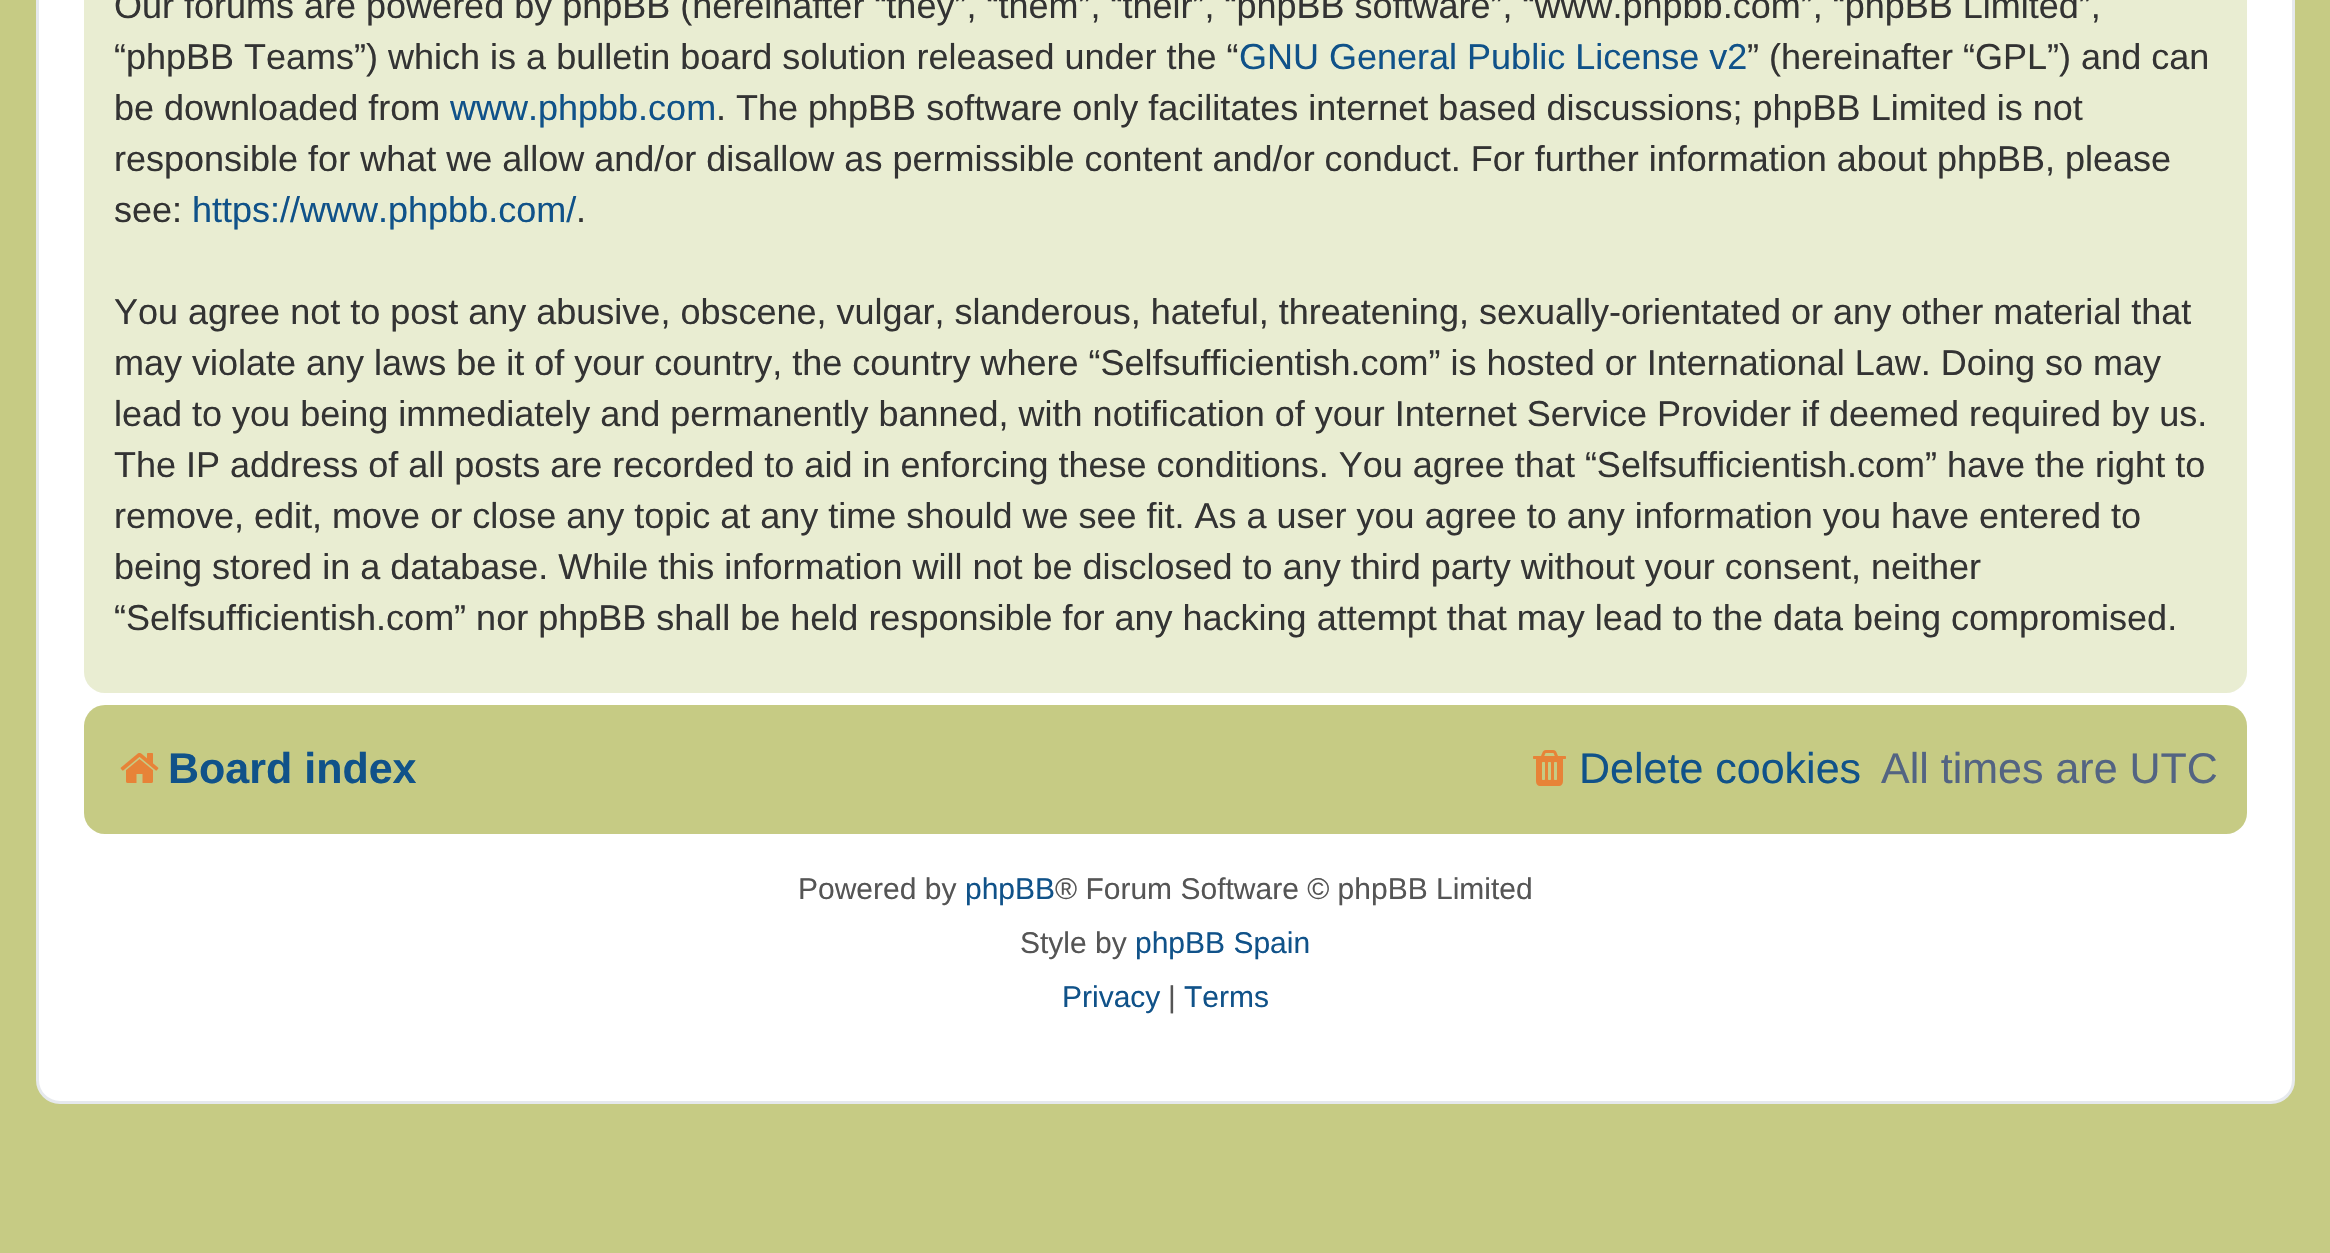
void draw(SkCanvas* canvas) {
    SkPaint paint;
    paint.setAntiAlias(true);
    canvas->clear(0xFFC6CB84);
    paint.setColor(0xFFFFFFFF);
    canvas->drawRoundRect(SkRect::MakeXYWH(37.5f, -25.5f, 2256, 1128), 22.5f, 22.5f, paint);
    paint.setStyle(SkPaint::kStroke_Style);
    paint.setStrokeWidth(3);
    paint.setColor(0xFFE6E9ED);
    canvas->drawRoundRect(SkRect::MakeXYWH(37.5f, -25.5f, 2256, 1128), 22.5f, 22.5f, paint);
    paint.setStyle(SkPaint::kFill_Style);
    paint.setColor(0xFFE9EDD2);
    canvas->drawRoundRect(SkRect::MakeXYWH(84, -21, 2163, 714), 21, 21, paint);
    SkFont font1(fontMgr->matchFamilyStyle("Liberation Sans", SkFontStyle::Normal()), 36);
    font1.setSubpixel(true);
    paint.setColor(0xFF333333);
    canvas->drawString("Our forums are powered by phpBB (hereinafter “they”, “them”, “their”, “phpBB software”, “www.phpbb.com”, “phpBB Limited”,", 114, 18, font1, paint);
    canvas->drawString("“phpBB Teams”) which is a bulletin board solution released under the “", 114, 69, font1, paint);
    paint.setColor(0xFF105289);
    canvas->drawString("GNU General Public License v2", 1239, 69, font1, paint);
    paint.setColor(0xFF333333);
    canvas->drawString("” (hereinafter “GPL”) and can", 1747, 69, font1, paint);
    canvas->drawString("be downloaded from", 114, 120, font1, paint);
    paint.setColor(0xFF105289);
    canvas->drawString("www.phpbb.com", 450, 120, font1, paint);
    paint.setColor(0xFF333333);
    canvas->drawString(". The phpBB software only facilitates internet based discussions; phpBB Limited is not", 716, 120, font1, paint);
    canvas->drawString("responsible for what we allow and/or disallow as permissible content and/or conduct. For further information about phpBB, please", 114, 171, font1, paint);
    canvas->drawString("see:", 114, 222, font1, paint);
    paint.setColor(0xFF105289);
    canvas->drawString("https://www.phpbb.com/", 192, 222, font1, paint);
    paint.setColor(0xFF333333);
    canvas->drawString(".", 576, 222, font1, paint);
    canvas->drawString("You agree not to post any abusive, obscene, vulgar, slanderous, hateful, threatening, sexually-orientated or any other material that", 114, 324, font1, paint);
    canvas->drawString("may violate any laws be it of your country, the country where “Selfsufficientish.com” is hosted or International Law. Doing so may", 114, 375, font1, paint);
    canvas->drawString("lead to you being immediately and permanently banned, with notification of your Internet Service Provider if deemed required by us.", 114, 426, font1, paint);
    canvas->drawString("The IP address of all posts are recorded to aid in enforcing these conditions. You agree that “Selfsufficientish.com” have the right to", 114, 477, font1, paint);
    canvas->drawString("remove, edit, move or close any topic at any time should we see fit. As a user you agree to any information you have entered to", 114, 528, font1, paint);
    canvas->drawString("being stored in a database. While this information will not be disclosed to any third party without your consent, neither", 114, 579, font1, paint);
    canvas->drawString("“Selfsufficientish.com” nor phpBB shall be held responsible for any hacking attempt that may lead to the data being compromised.", 114, 630, font1, paint);
    paint.setColor(0xFFC6CB84);
    canvas->drawRoundRect(SkRect::MakeXYWH(84, 705, 2163, 129), 21, 21, paint);
    canvas->drawImageRect(SkImages::DeferredFromEncodedData(SkData::MakeFromFileName("img1.png")), SkRect::MakeXYWH(120, 753, 39, 30), SkSamplingOptions());
    SkFont font2(fontMgr->matchFamilyStyle("Liberation Sans", SkFontStyle::Bold()), 43);
    font2.setSubpixel(true);
    paint.setColor(0xFF105289);
    canvas->drawString("Board index", 168, 783, font2, paint);
    canvas->drawImageRect(SkImages::DeferredFromEncodedData(SkData::MakeFromFileName("img2.png")), SkRect::MakeXYWH(1533, 750, 33, 36), SkSamplingOptions());
    SkFont font3(fontMgr->matchFamilyStyle("Liberation Sans", SkFontStyle::Normal()), 43);
    font3.setSubpixel(true);
    canvas->drawString("Delete cookies", 1579, 783, font3, paint);
    paint.setColor(0xFF536482);
    canvas->drawString("All times are UTC", 1881, 783, font3, paint);
    SkFont font4(fontMgr->matchFamilyStyle("Liberation Sans", SkFontStyle::Normal()), 30);
    font4.setSubpixel(true);
    paint.setColor(0xFF555555);
    canvas->drawString("Powered by", 798, 899, font4, paint);
    paint.setColor(0xFF105289);
    canvas->drawString("phpBB", 965, 899, font4, paint);
    paint.setColor(0xFF555555);
    canvas->drawString("® Forum Software © phpBB Limited", 1055, 899, font4, paint);
    canvas->drawString("Style by", 1020, 953, font4, paint);
    paint.setColor(0xFF105289);
    canvas->drawString("phpBB Spain", 1135, 953, font4, paint);
    canvas->drawString("Privacy", 1062, 1007, font4, paint);
    paint.setColor(0xFF555555);
    canvas->drawString("|", 1168, 1007, font4, paint);
    paint.setColor(0xFF105289);
    canvas->drawString("Terms", 1184, 1007, font4, paint);
}
